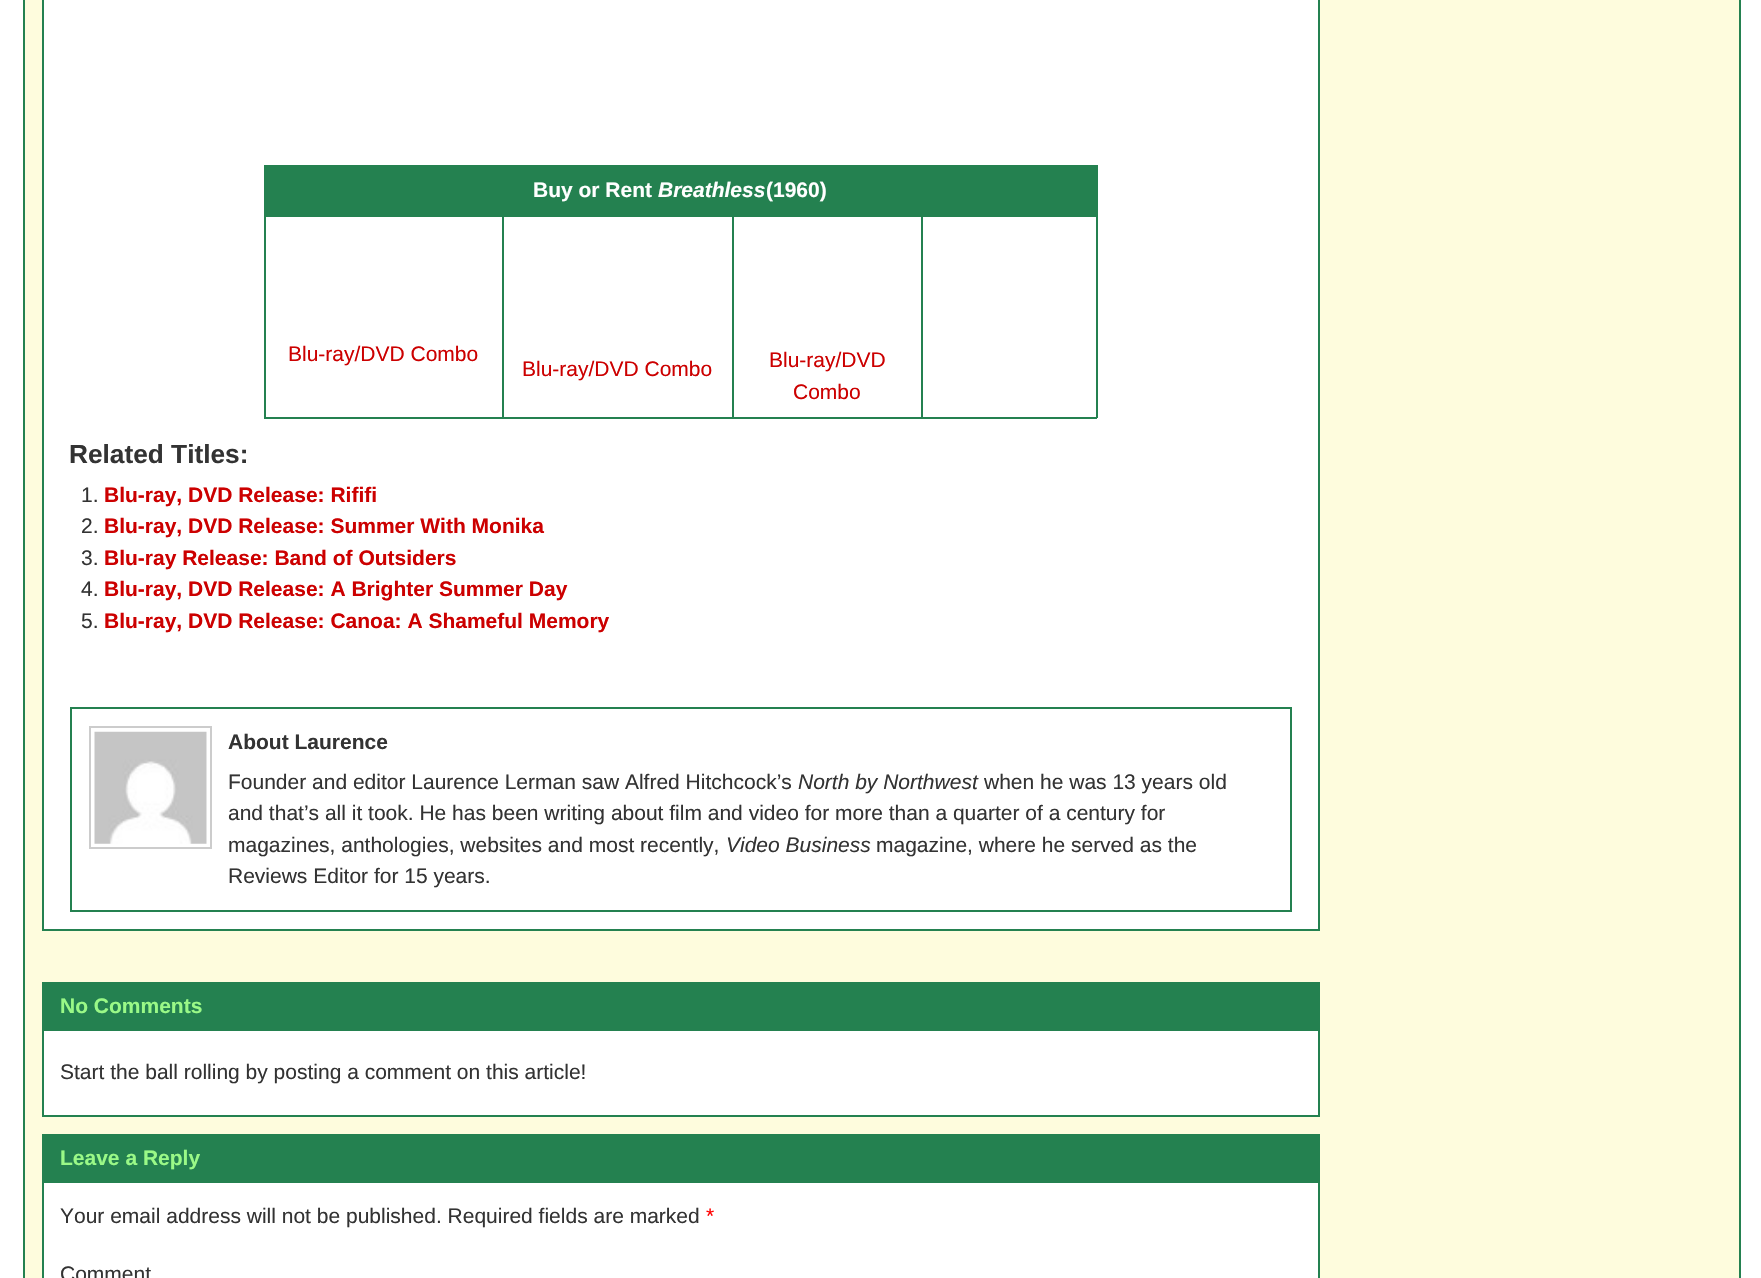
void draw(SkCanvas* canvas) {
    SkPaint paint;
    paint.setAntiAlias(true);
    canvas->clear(0xFFFFFFFF);
    paint.setColor(0xFFFEFCDD);
    canvas->drawRect(SkRect::MakeXYWH(24, -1, 1716, 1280), paint);
    paint.setStyle(SkPaint::kStroke_Style);
    paint.setStrokeWidth(2);
    paint.setColor(0xFF248150);
    canvas->drawRect(SkRect::MakeXYWH(24, -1, 1716, 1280), paint);
    paint.setStyle(SkPaint::kFill_Style);
    paint.setColor(0xFFFFFFFF);
    canvas->drawRect(SkRect::MakeXYWH(43, -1, 1276, 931), paint);
    paint.setStyle(SkPaint::kStroke_Style);
    paint.setColor(0xFF248150);
    canvas->drawRect(SkRect::MakeXYWH(43, -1, 1276, 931), paint);
    paint.setStyle(SkPaint::kFill_Style);
    canvas->drawRect(SkRect::MakeXYWH(264, 165, 833, 2), paint);
    canvas->drawRect(SkRect::MakeXYWH(1096, 165, 2, 253), paint);
    canvas->drawRect(SkRect::MakeXYWH(264, 417, 833, 2), paint);
    canvas->drawRect(SkRect::MakeXYWH(264, 165, 2, 253), paint);
    canvas->drawRect(SkRect::MakeXYWH(266, 167, 830, 48), paint);
    SkFont font1(fontMgr->matchFamilyStyle("Liberation Sans", SkFontStyle::Bold()), 21);
    font1.setSubpixel(true);
    paint.setColor(0xFFFFFFFF);
    canvas->drawString("Buy or Rent", 533, 197, font1, paint);
    SkFont font2(fontMgr->matchFamilyStyle("Liberation Sans", SkFontStyle::BoldItalic()), 21);
    font2.setSubpixel(true);
    canvas->drawString("Breathless", 658, 197, font2, paint);
    canvas->drawString("(1960)", 766, 197, font1, paint);
    paint.setColor(0xFF248150);
    canvas->drawRect(SkRect::MakeXYWH(921, 215, 176, 2), paint);
    canvas->drawRect(SkRect::MakeXYWH(921, 215, 2, 203), paint);
    canvas->drawRect(SkRect::MakeXYWH(732, 215, 190, 2), paint);
    canvas->drawRect(SkRect::MakeXYWH(732, 215, 2, 203), paint);
    canvas->drawRect(SkRect::MakeXYWH(502, 215, 231, 2), paint);
    canvas->drawRect(SkRect::MakeXYWH(502, 215, 2, 203), paint);
    canvas->drawRect(SkRect::MakeXYWH(264, 215, 240, 2), paint);
    SkFont font3(fontMgr->matchFamilyStyle("Liberation Sans", SkFontStyle::Normal()), 21);
    font3.setSubpixel(true);
    paint.setColor(0xFFCC0000);
    canvas->drawString("Blu-ray/DVD Combo", 288, 361, font3, paint);
    canvas->drawString("Blu-ray/DVD Combo", 522, 376, font3, paint);
    canvas->drawString("Blu-ray/DVD", 769, 367, font3, paint);
    canvas->drawString("Combo", 793, 399, font3, paint);
    SkFont font4(fontMgr->matchFamilyStyle("Liberation Sans", SkFontStyle::Bold()), 26.25f);
    font4.setSubpixel(true);
    paint.setColor(0xFF333333);
    canvas->drawString("Related Titles:", 69, 463, font4, paint);
    canvas->drawString("1.", 81, 502, font3, paint);
    paint.setColor(0xFFCC0000);
    canvas->drawString("Blu-ray, DVD Release: Rififi", 104, 502, font1, paint);
    paint.setColor(0xFF333333);
    canvas->drawString("2.", 81, 533, font3, paint);
    paint.setColor(0xFFCC0000);
    canvas->drawString("Blu-ray, DVD Release: Summer With Monika", 104, 533, font1, paint);
    paint.setColor(0xFF333333);
    canvas->drawString("3.", 81, 565, font3, paint);
    paint.setColor(0xFFCC0000);
    canvas->drawString("Blu-ray Release: Band of Outsiders", 104, 565, font1, paint);
    paint.setColor(0xFF333333);
    canvas->drawString("4.", 81, 596, font3, paint);
    paint.setColor(0xFFCC0000);
    canvas->drawString("Blu-ray, DVD Release: A Brighter Summer Day", 104, 596, font1, paint);
    paint.setColor(0xFF333333);
    canvas->drawString("5.", 81, 628, font3, paint);
    paint.setColor(0xFFCC0000);
    canvas->drawString("Blu-ray, DVD Release: Canoa: A Shameful Memory", 104, 628, font1, paint);
    paint.setStyle(SkPaint::kStroke_Style);
    paint.setColor(0xFF248150);
    canvas->drawRect(SkRect::MakeXYWH(71, 708, 1220, 203), paint);
    paint.setColor(0xFFCCCCCC);
    canvas->drawRect(SkRect::MakeXYWH(90, 727, 121, 121), paint);
    canvas->drawImageRect(SkImages::DeferredFromEncodedData(SkData::MakeFromFileName("img1.png")), SkRect::MakeXYWH(94, 731, 113, 113), SkSamplingOptions());
    paint.setStyle(SkPaint::kFill_Style);
    paint.setColor(0xFF333333);
    canvas->drawString("About Laurence", 228, 749, font1, paint);
    canvas->drawString("Founder and editor Laurence Lerman saw Alfred Hitchcock’s", 228, 789, font3, paint);
    SkFont font5(fontMgr->matchFamilyStyle("Liberation Sans", SkFontStyle::Italic()), 21);
    font5.setSubpixel(true);
    canvas->drawString("North by Northwest", 798, 789, font5, paint);
    canvas->drawString("when he was 13 years old", 984, 789, font3, paint);
    canvas->drawString("and that’s all it took. He has been writing about film and video for more than a quarter of a century for", 228, 820, font3, paint);
    canvas->drawString("magazines, anthologies, websites and most recently,", 228, 852, font3, paint);
    canvas->drawString("Video Business", 726, 852, font5, paint);
    canvas->drawString("magazine, where he served as the", 876, 852, font3, paint);
    canvas->drawString("Reviews Editor for 15 years.", 228, 883, font3, paint);
    paint.setColor(0xFF248150);
    canvas->drawRect(SkRect::MakeXYWH(42, 982, 1278, 49), paint);
    paint.setColor(0xFF9AF987);
    canvas->drawString("No Comments", 60, 1013, font1, paint);
    paint.setColor(0xFFFFFFFF);
    canvas->drawRect(SkRect::MakeXYWH(44, 1031, 1274, 84), paint);
    paint.setColor(0xFF248150);
    canvas->drawRect(SkRect::MakeXYWH(1318, 1031, 2, 86), paint);
    canvas->drawRect(SkRect::MakeXYWH(42, 1115, 1278, 2), paint);
    canvas->drawRect(SkRect::MakeXYWH(42, 1031, 2, 86), paint);
    paint.setColor(0xFF333333);
    canvas->drawString("Start the ball rolling by posting a comment on this article!", 60, 1079, font3, paint);
    paint.setColor(0xFF248150);
    canvas->drawRect(SkRect::MakeXYWH(42, 1134, 1278, 49), paint);
    paint.setColor(0xFF9AF987);
    canvas->drawString("Leave a Reply", 60, 1165, font1, paint);
    paint.setColor(0xFFFFFFFF);
    canvas->drawRect(SkRect::MakeXYWH(44, 1183, 1274, 95), paint);
    paint.setColor(0xFF248150);
    canvas->drawRect(SkRect::MakeXYWH(1318, 1183, 2, 95), paint);
    canvas->drawRect(SkRect::MakeXYWH(42, 1183, 2, 95), paint);
    paint.setColor(0xFF333333);
    canvas->drawString("Your email address will not be published. Required fields are marked", 60, 1223, font3, paint);
    paint.setColor(0xFFFF0000);
    canvas->drawString("*", 706, 1223, font3, paint);
    paint.setColor(0xFF333333);
    canvas->drawString("Comment", 60, 1281, font3, paint);
}
